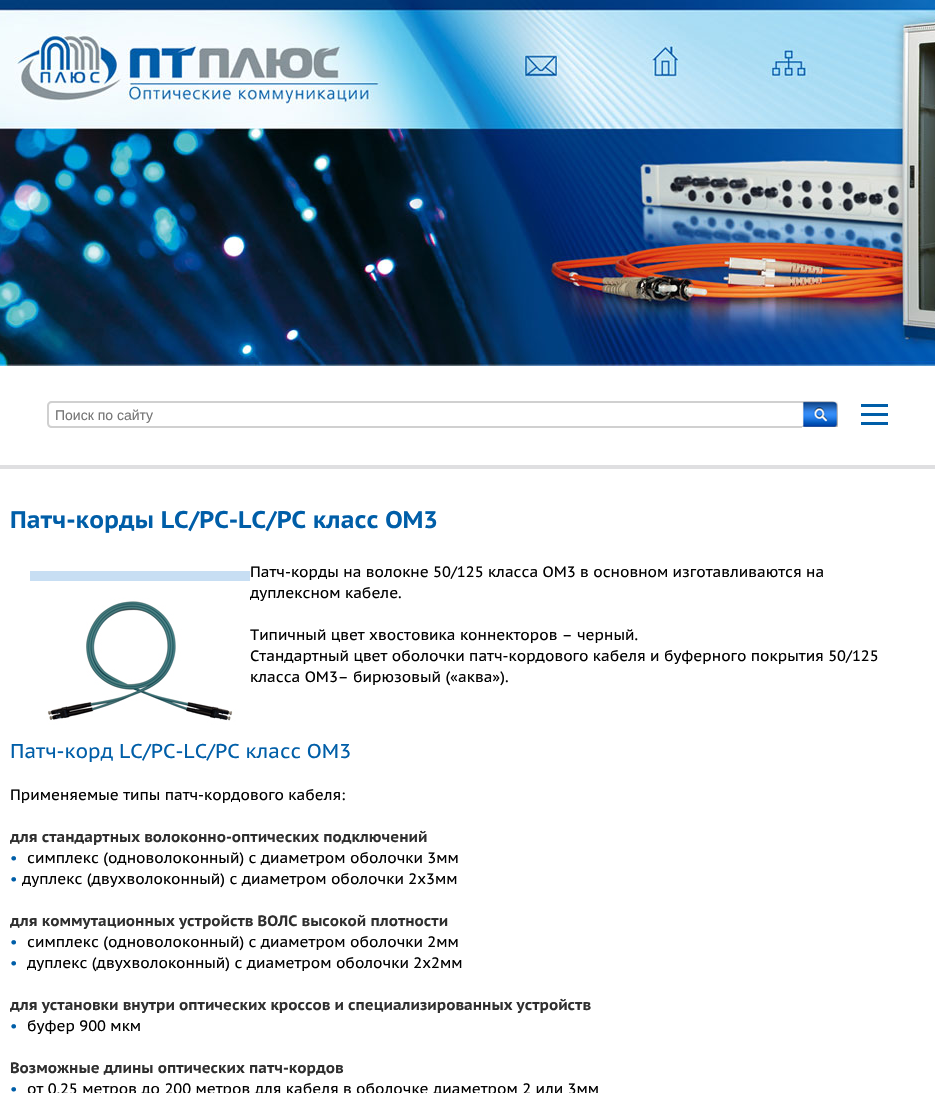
void draw(SkCanvas* canvas) {
    SkPaint paint;
    paint.setAntiAlias(true);
    canvas->clear(0xFFFFFFFF);
    canvas->drawImageRect(SkImages::DeferredFromEncodedData(SkData::MakeFromFileName("img1.png")), SkRect::MakeXYWH(0, 0, 935, 366), SkSamplingOptions());
    paint.setColor(0xFFDFDFE1);
    canvas->drawRect(SkRect::MakeXYWH(0, 465, 935, 4), paint);
    paint.setColor(0xFFD0D0D0);
    canvas->drawPath(SkPathBuilder(SkPathFillType::kEvenOdd).moveTo(52, 401).lineTo(802, 401).lineTo(802, 428).lineTo(52, 428).cubicTo(49, 428, 47, 426, 47, 423).lineTo(47, 406).cubicTo(47, 403, 49, 401, 52, 401).close().moveTo(52, 403).lineTo(802, 403).lineTo(802, 426).lineTo(52, 426).cubicTo(50, 426, 49, 425, 49, 423).lineTo(49, 406).cubicTo(49, 404, 50, 403, 52, 403).close().detach(), paint);
    SkFont font1(fontMgr->matchFamilyStyle("Liberation Sans", SkFontStyle::Normal()), 14);
    font1.setSubpixel(true);
    paint.setColor(0xFF757575);
    canvas->drawString("Поиск по сайту", 55, 420, font1, paint);
    canvas->drawImageRect(SkImages::DeferredFromEncodedData(SkData::MakeFromFileName("img2.png")), SkRect::MakeXYWH(802, 401, 36, 26), SkSamplingOptions());
    paint.setColor(0xFF005EA8);
    canvas->drawRect(SkRect::MakeXYWH(861, 404, 27, 3), paint);
    canvas->drawRect(SkRect::MakeXYWH(861, 413, 27, 3), paint);
    canvas->drawRect(SkRect::MakeXYWH(861, 422, 27, 3), paint);
    SkFont font2(fontMgr->matchFamilyStyle("PT Sans Caption", SkFontStyle::Bold()), 24);
    font2.setSubpixel(true);
    canvas->drawString("Патч-корды LC/PC-LC/PC класс OM3", 10, 528, font2, paint);
    paint.setColor(0xFFC7DEF3);
    canvas->drawRect(SkRect::MakeXYWH(30, 571, 220, 10), paint);
    canvas->drawImageRect(SkImages::DeferredFromEncodedData(SkData::MakeFromFileName("img3.png")), SkRect::MakeXYWH(30, 581, 220, 150), SkSamplingOptions());
    SkFont font3(fontMgr->matchFamilyStyle("PT Sans Caption", SkFontStyle::Normal()), 15);
    font3.setSubpixel(true);
    paint.setColor(0xFF010101);
    canvas->drawString("Патч-корды на волокне 50/125 класса ОМ3 в основном изготавливаются на", 250, 577, font3, paint);
    canvas->drawString("дуплексном кабеле.", 250, 598, font3, paint);
    canvas->drawString("Типичный цвет хвостовика коннекторов – черный.", 250, 640, font3, paint);
    canvas->drawString("Стандартный цвет оболочки патч-кордового кабеля и буферного покрытия 50/125", 250, 661, font3, paint);
    canvas->drawString("класса ОМ3– бирюзовый («аква»).", 250, 682, font3, paint);
    SkFont font4(fontMgr->matchFamilyStyle("PT Sans Caption", SkFontStyle::Normal()), 20);
    font4.setSubpixel(true);
    paint.setColor(0xFF005EA8);
    canvas->drawString("Патч-корд LC/PC-LC/PC класс OM3", 10, 758, font4, paint);
    paint.setColor(0xFF010101);
    canvas->drawString("Применяемые типы патч-кордового кабеля:", 10, 800, font3, paint);
    SkFont font5(fontMgr->matchFamilyStyle("PT Sans Caption", SkFontStyle::Bold()), 15);
    font5.setSubpixel(true);
    paint.setColor(0xFF2F2F2F);
    canvas->drawString("для стандартных волоконно-оптических подключений", 10, 842, font5, paint);
    paint.setColor(0xFF005EA8);
    canvas->drawString("•", 10, 863, font3, paint);
    paint.setColor(0xFF010101);
    canvas->drawString("симплекс (одноволоконный) с диаметром оболочки 3мм", 27, 863, font3, paint);
    paint.setColor(0xFF005EA8);
    canvas->drawString("•", 10, 884, font3, paint);
    paint.setColor(0xFF010101);
    canvas->drawString("дуплекс (двухволоконный) с диаметром оболочки 2х3мм", 22, 884, font3, paint);
    paint.setColor(0xFF2F2F2F);
    canvas->drawString("для коммутационных устройств ВОЛС высокой плотности", 10, 926, font5, paint);
    paint.setColor(0xFF005EA8);
    canvas->drawString("•", 10, 947, font3, paint);
    paint.setColor(0xFF010101);
    canvas->drawString("симплекс (одноволоконный) с диаметром оболочки 2мм", 27, 947, font3, paint);
    paint.setColor(0xFF005EA8);
    canvas->drawString("•", 10, 968, font3, paint);
    paint.setColor(0xFF010101);
    canvas->drawString("дуплекс (двухволоконный) с диаметром оболочки 2х2мм", 27, 968, font3, paint);
    paint.setColor(0xFF2F2F2F);
    canvas->drawString("для установки внутри оптических кроссов и специализированных устройств", 10, 1010, font5, paint);
    paint.setColor(0xFF005EA8);
    canvas->drawString("•", 10, 1031, font3, paint);
    paint.setColor(0xFF010101);
    canvas->drawString("буфер 900 мкм", 27, 1031, font3, paint);
    paint.setColor(0xFF2F2F2F);
    canvas->drawString("Возможные длины оптических патч-кордов", 10, 1073, font5, paint);
    paint.setColor(0xFF005EA8);
    canvas->drawString("•", 10, 1094, font3, paint);
    paint.setColor(0xFF010101);
    canvas->drawString("от 0,25 метров до 200 метров для кабеля в оболочке диаметром 2 или 3мм", 27, 1094, font3, paint);
}
